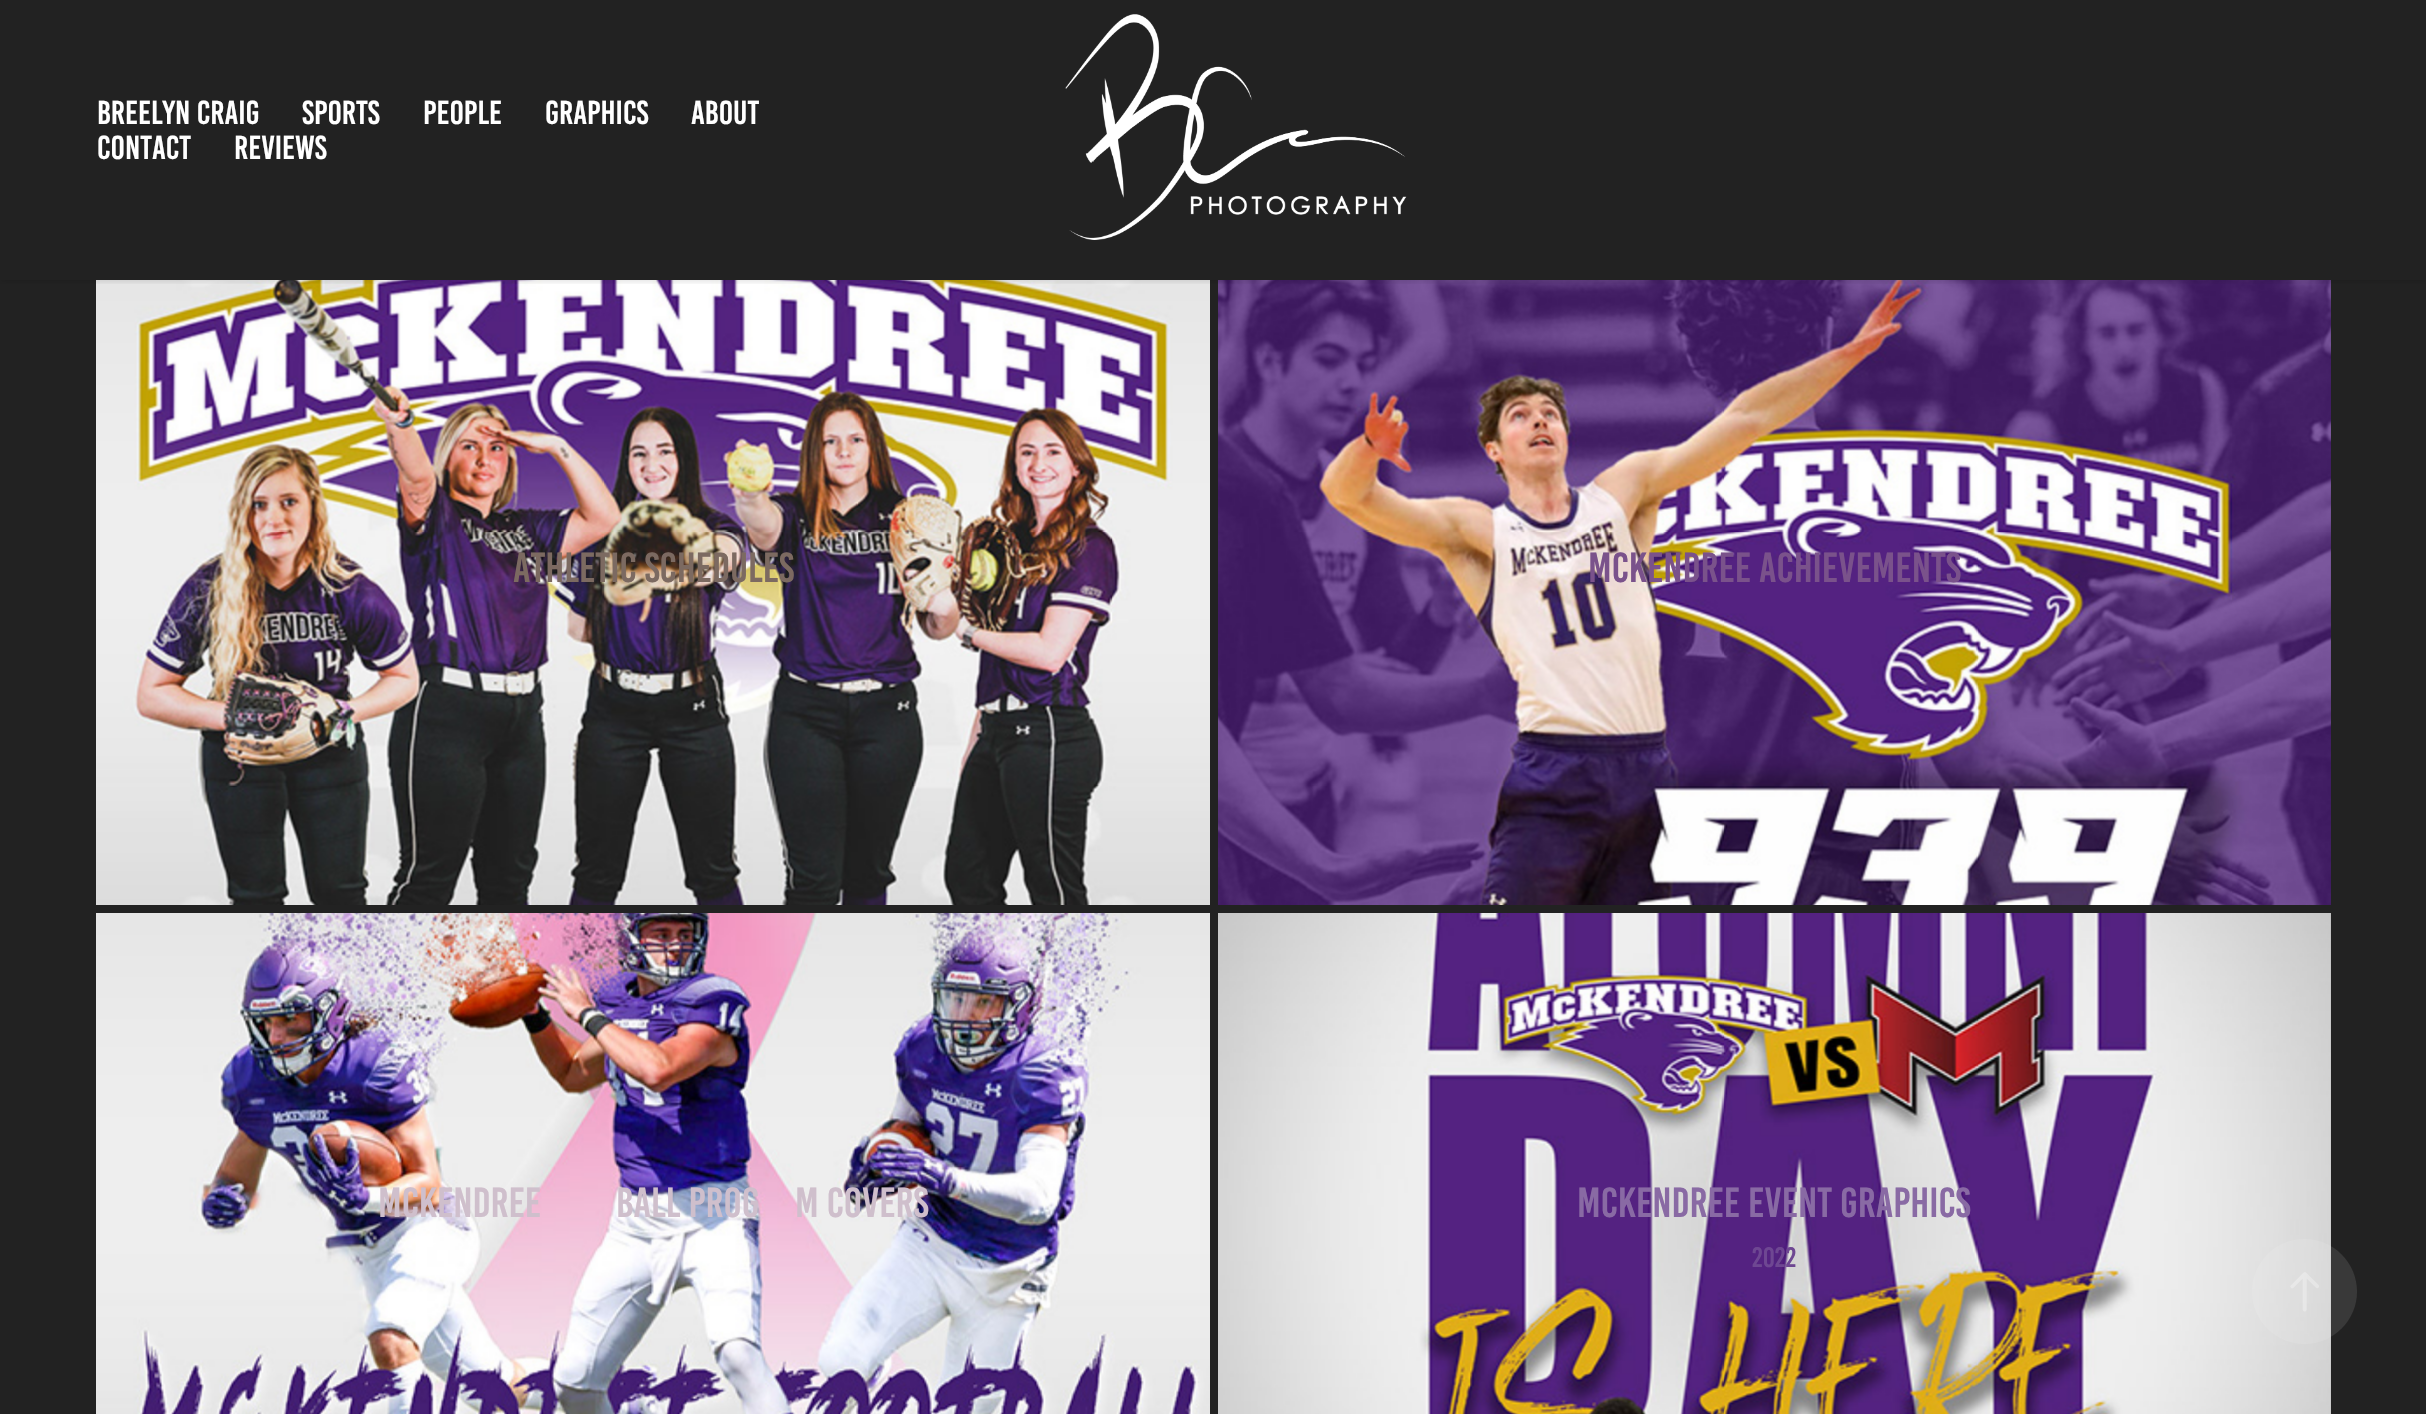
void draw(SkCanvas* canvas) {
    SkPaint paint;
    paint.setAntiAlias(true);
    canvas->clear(0xFF222222);
    canvas->drawImageRect(SkImages::DeferredFromEncodedData(SkData::MakeFromFileName("img2.png")), SkRect::MakeXYWH(96, 280, 1114, 625), SkSamplingOptions());
    canvas->drawImageRect(SkImages::DeferredFromEncodedData(SkData::MakeFromFileName("img3.png")), SkRect::MakeXYWH(1218, 280, 1113, 625), SkSamplingOptions());
    canvas->save();
    canvas->clipRect(SkRect::MakeXYWH(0, 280, 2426, 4));
    paint.setColor(0x1A000000);
    paint.setMaskFilter(SkMaskFilter::MakeBlur(kNormal_SkBlurStyle, 2.5f));
    canvas->drawRect(SkRect::MakeXYWH(0, 2, 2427, 280), paint);
    paint.setMaskFilter(nullptr);
    canvas->restore();
    SkFont font1(fontMgr->matchFamilyStyle("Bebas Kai", SkFontStyle::Normal()), 33.25f);
    font1.setSubpixel(true);
    paint.setColor(0xFFFFFFFF);
    canvas->drawString("BREELYN CRAIG", 97, 124, font1, paint);
    canvas->drawString("SPORTS", 302, 124, font1, paint);
    canvas->drawString("PEOPLE", 423, 124, font1, paint);
    canvas->drawString("GRAPHICS", 545, 124, font1, paint);
    canvas->drawString("ABOUT", 691, 124, font1, paint);
    canvas->drawString("CONTACT", 97, 159, font1, paint);
    canvas->drawString("REVIEWS", 234, 159, font1, paint);
    canvas->drawImageRect(SkImages::DeferredFromEncodedData(SkData::MakeFromFileName("img1.png")), SkRect::MakeXYWH(1065, 14, 342, 226), SkSamplingOptions());
    SkFont font2(fontMgr->matchFamilyStyle("Bebas Kai", SkFontStyle::Normal()), 42);
    font2.setSubpixel(true);
    paint.setColor(0xFF7C6A61);
    canvas->drawString("ATHLETIC SCHEDULES", 513, 582, font2, paint);
    paint.setColor(0xFF7A528B);
    canvas->drawString("MCKENDREE ACHIEVEMENTS", 1588, 582, font2, paint);
    canvas->drawImageRect(SkImages::DeferredFromEncodedData(SkData::MakeFromFileName("img4.png")), SkRect::MakeXYWH(96, 913, 1114, 501), SkSamplingOptions());
    paint.setColor(0xFFCFBFCC);
    canvas->drawString("MCKENDREE", 378, 1217, font2, paint);
    canvas->drawString("BALL PROG", 616, 1217, font2, paint);
    canvas->drawString("M COVERS", 795, 1217, font2, paint);
    canvas->drawImageRect(SkImages::DeferredFromEncodedData(SkData::MakeFromFileName("img5.png")), SkRect::MakeXYWH(1218, 913, 1113, 501), SkSamplingOptions());
    paint.setColor(0xFF896AA4);
    canvas->drawString("MCKENDREE EVENT GRAPHICS", 1577, 1217, font2, paint);
    SkFont font3(fontMgr->matchFamilyStyle("Bebas Kai", SkFontStyle::Normal()), 28);
    font3.setSubpixel(true);
    paint.setColor(0xFF6E4792);
    canvas->drawString("2022", 1752, 1267, font3, paint);
    paint.setColor(0x1AFFFFFF);
    canvas->drawCircle(2304.5f, 1291.5f, 52.5f, paint);
    canvas->drawImageRect(SkImages::DeferredFromEncodedData(SkData::MakeFromFileName("img6.png")), SkRect::MakeXYWH(2290, 1272, 29, 40), SkSamplingOptions());
}
